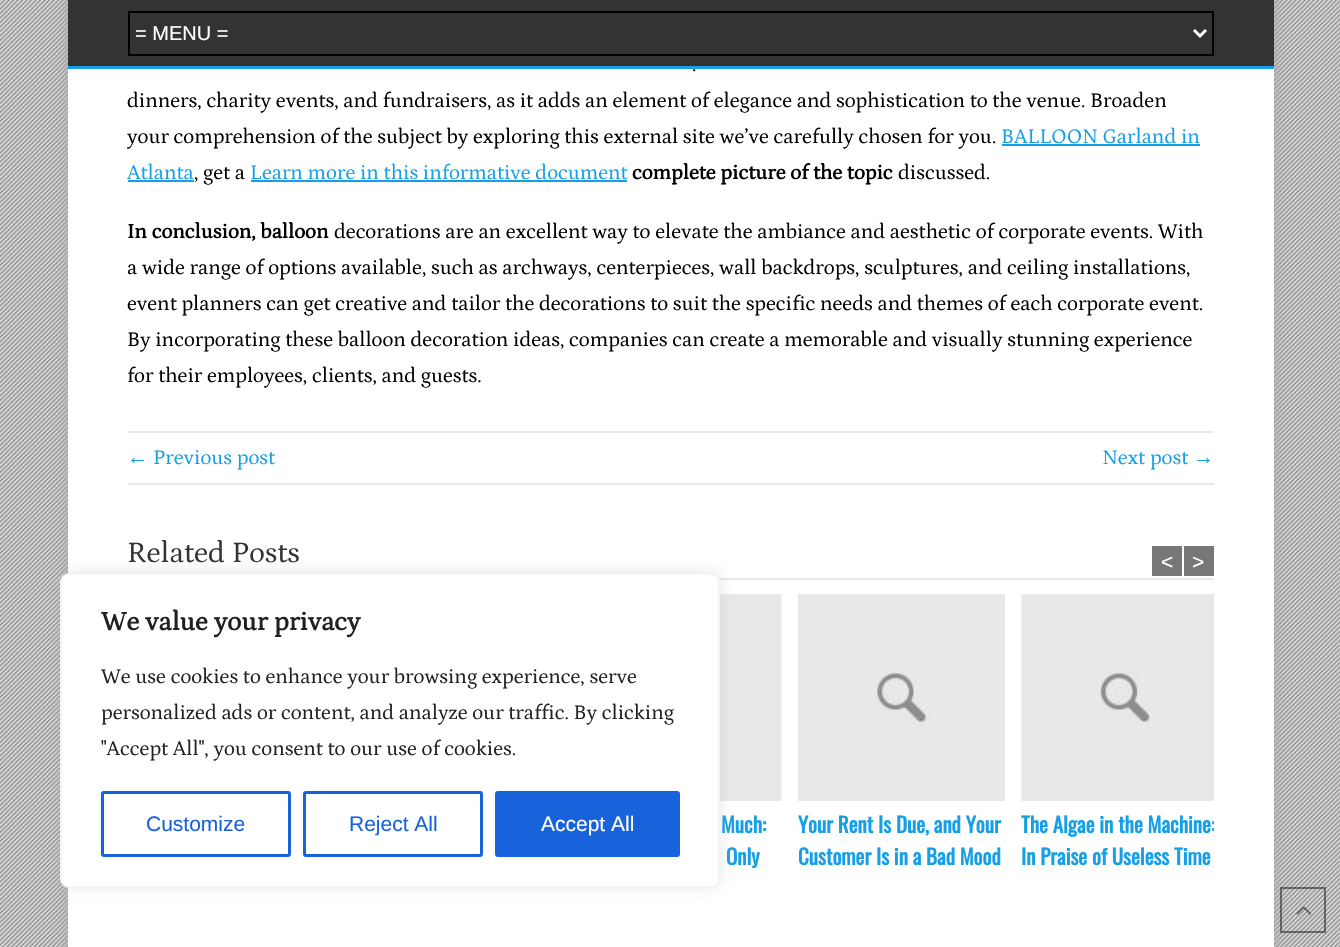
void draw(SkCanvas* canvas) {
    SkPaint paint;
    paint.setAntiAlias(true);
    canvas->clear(0xFFDEDEDE);
    canvas->drawImageRect(SkImages::DeferredFromEncodedData(SkData::MakeFromFileName("img1.png")), SkRect::MakeXYWH(0, 0, 1340, 947), SkSamplingOptions());
    paint.setColor(0xFFAAAAAA);
    paint.setMaskFilter(SkMaskFilter::MakeBlur(kNormal_SkBlurStyle, 7.5f));
    canvas->drawRect(SkRect::MakeXYWH(68, -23, 1206, 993), paint);
    paint.setMaskFilter(nullptr);
    paint.setColor(0xFFFFFFFF);
    canvas->drawRect(SkRect::MakeXYWH(68, 69, 1206, 878), paint);
    paint.setColor(0xFF333333);
    canvas->drawRect(SkRect::MakeXYWH(68, 0, 1206, 66), paint);
    paint.setColor(0xFF169FE6);
    canvas->drawRect(SkRect::MakeXYWH(68, 66, 1206, 3), paint);
    paint.setStyle(SkPaint::kStroke_Style);
    paint.setStrokeWidth(2);
    paint.setColor(0xFF000000);
    canvas->drawRect(SkRect::MakeXYWH(129, 12, 1084, 43), paint);
    paint.setStrokeWidth(3);
    paint.setColor(0xFFFFFFFF);
    canvas->drawPath(SkPathBuilder().moveTo(1194, 30).lineTo(1200, 36).lineTo(1206, 30).detach(), paint);
    SkFont font1(fontMgr->matchFamilyStyle("Liberation Sans", SkFontStyle::Normal()), 20);
    font1.setSubpixel(true);
    paint.setStyle(SkPaint::kFill_Style);
    canvas->drawString("= MENU =", 135, 40, font1, paint);
    SkFont font2(fontMgr->matchFamilyStyle("Petrona", SkFontStyle::Normal()), 21);
    font2.setSubpixel(true);
    paint.setColor(0xFF000000);
    canvas->drawString(".", 692, 71, font2, paint);
    canvas->drawString("dinners, charity events, and fundraisers, as it adds an element of elegance and sophistication to the venue. Broaden", 127, 107, font2, paint);
    canvas->drawString("your comprehension of the subject by exploring this external site we’ve carefully chosen for you.", 127, 143, font2, paint);
    paint.setColor(0xFF169FE6);
    canvas->drawString("BALLOON Garland in", 1001, 143, font2, paint);
    canvas->drawRect(SkRect::MakeXYWH(1002, 144, 198, 2), paint);
    canvas->drawString("Atlanta", 127, 179, font2, paint);
    canvas->drawRect(SkRect::MakeXYWH(128, 180, 66, 2), paint);
    paint.setColor(0xFF000000);
    canvas->drawString(", get a", 194, 179, font2, paint);
    paint.setColor(0xFF169FE6);
    canvas->drawString("Learn more in this informative document", 250, 179, font2, paint);
    canvas->drawRect(SkRect::MakeXYWH(251, 180, 376, 2), paint);
    SkFont font3(fontMgr->matchFamilyStyle("Petrona", SkFontStyle::Bold()), 21);
    font3.setSubpixel(true);
    paint.setColor(0xFF000000);
    canvas->drawString("complete picture of the topic", 632, 179, font3, paint);
    canvas->drawString("discussed.", 898, 179, font2, paint);
    canvas->drawString("In conclusion, balloon", 127, 238, font3, paint);
    canvas->drawString("decorations are an excellent way to elevate the ambiance and aesthetic of corporate events. With", 334, 238, font2, paint);
    canvas->drawString("a wide range of options available, such as archways, centerpieces, wall backdrops, sculptures, and ceiling installations,", 127, 274, font2, paint);
    canvas->drawString("event planners can get creative and tailor the decorations to suit the specific needs and themes of each corporate event.", 127, 310, font2, paint);
    canvas->drawString("By incorporating these balloon decoration ideas, companies can create a memorable and visually stunning experience", 127, 346, font2, paint);
    canvas->drawString("for their employees, clients, and guests.", 127, 382, font2, paint);
    paint.setColor(0xFFE8E8E8);
    canvas->drawRect(SkRect::MakeXYWH(128, 431, 1086, 2), paint);
    canvas->drawRect(SkRect::MakeXYWH(128, 483, 1086, 2), paint);
    SkFont font4(fontMgr->matchFamilyStyle("Liberation Sans", SkFontStyle::Normal()), 21);
    font4.setSubpixel(true);
    paint.setColor(0xFF169FE6);
    canvas->drawString("←", 127, 464, font4, paint);
    canvas->drawString("Previous post", 153, 464, font2, paint);
    canvas->drawString("Next post", 1102, 464, font2, paint);
    canvas->drawString("→", 1193, 464, font4, paint);
    paint.setColor(0xFFE8E8E8);
    canvas->drawRect(SkRect::MakeXYWH(719, 578, 495, 2), paint);
    SkFont font5(fontMgr->matchFamilyStyle("Petrona", SkFontStyle::Normal()), 30);
    font5.setSubpixel(true);
    paint.setColor(0xFF333333);
    canvas->drawString("Related Posts", 127, 562, font5, paint);
    paint.setColor(0xFF777777);
    canvas->drawRect(SkRect::MakeXYWH(1152, 546, 30, 30), paint);
    paint.setColor(0xFFFFFFFF);
    canvas->drawString("<", 1161, 569, font4, paint);
    paint.setColor(0xFF777777);
    canvas->drawRect(SkRect::MakeXYWH(1184, 546, 30, 30), paint);
    paint.setColor(0xFFFFFFFF);
    canvas->drawString(">", 1192, 569, font4, paint);
    canvas->drawImageRect(SkImages::DeferredFromEncodedData(SkData::MakeFromFileName("img2.png")), SkRect::MakeXYWH(720, 594, 62, 207), SkSamplingOptions());
    SkFont font6(fontMgr->matchFamilyStyle("Oswald", SkFontStyle::Bold()), 21);
    font6.setSubpixel(true);
    paint.setColor(0xFF169FE6);
    canvas->drawString("Much:", 721, 833, font6, paint);
    canvas->drawString("Only", 726, 865, font6, paint);
    canvas->drawImageRect(SkImages::DeferredFromEncodedData(SkData::MakeFromFileName("img3.png")), SkRect::MakeXYWH(798, 594, 207, 207), SkSamplingOptions());
    canvas->drawString("Your Rent Is Due, and Your", 798, 833, font6, paint);
    canvas->drawString("Customer Is in a Bad Mood", 798, 865, font6, paint);
    canvas->drawImageRect(SkImages::DeferredFromEncodedData(SkData::MakeFromFileName("img4.png")), SkRect::MakeXYWH(1021, 594, 193, 207), SkSamplingOptions());
    canvas->save();
    canvas->clipRect(SkRect::MakeXYWH(128, 594, 1086, 311));
    canvas->drawString("The Algae in the Machine:", 1021, 833, font6, paint);
    canvas->restore();
    canvas->drawString("In Praise of Useless Time", 1021, 865, font6, paint);
    paint.setColor(0x4DACABAB);
    paint.setMaskFilter(SkMaskFilter::MakeBlur(kNormal_SkBlurStyle, 7.5f));
    canvas->drawRoundRect(SkRect::MakeXYWH(60, 572, 660, 315), 9, 9, paint);
    paint.setMaskFilter(nullptr);
    paint.setColor(0xFFFFFFFF);
    canvas->drawRoundRect(SkRect::MakeXYWH(61, 574, 658, 313), 8, 8, paint);
    paint.setStyle(SkPaint::kStroke_Style);
    paint.setStrokeWidth(2);
    paint.setColor(0xFFF4F4F4);
    canvas->drawRoundRect(SkRect::MakeXYWH(61, 574, 658, 313), 8, 8, paint);
    SkFont font7(fontMgr->matchFamilyStyle("Petrona", SkFontStyle::Bold()), 27);
    font7.setSubpixel(true);
    paint.setStyle(SkPaint::kFill_Style);
    paint.setColor(0xFF212121);
    canvas->drawString("We value your privacy", 101, 630, font7, paint);
    canvas->drawString("We use cookies to enhance your browsing experience, serve", 101, 683, font2, paint);
    canvas->drawString("personalized ads or content, and analyze our traffic. By clicking", 101, 719, font2, paint);
    canvas->drawString("\"Accept All\", you consent to our use of cookies.", 101, 755, font2, paint);
    paint.setStyle(SkPaint::kStroke_Style);
    paint.setStrokeWidth(3);
    paint.setColor(0xFF1863DC);
    canvas->drawRoundRect(SkRect::MakeXYWH(102.5f, 792.5f, 187, 63), 1.5f, 1.5f, paint);
    paint.setStyle(SkPaint::kFill_Style);
    canvas->drawString("Customize", 146, 831, font4, paint);
    paint.setStyle(SkPaint::kStroke_Style);
    canvas->drawRoundRect(SkRect::MakeXYWH(304.5f, 792.5f, 177, 63), 1.5f, 1.5f, paint);
    paint.setStyle(SkPaint::kFill_Style);
    canvas->drawString("Reject All", 349, 831, font4, paint);
    canvas->drawRoundRect(SkRect::MakeXYWH(496.5f, 792.5f, 182, 63), 1.5f, 1.5f, paint);
    paint.setStyle(SkPaint::kStroke_Style);
    canvas->drawRoundRect(SkRect::MakeXYWH(496.5f, 792.5f, 182, 63), 1.5f, 1.5f, paint);
    paint.setStyle(SkPaint::kFill_Style);
    paint.setColor(0xFFFFFFFF);
    canvas->drawString("Accept All", 541, 831, font4, paint);
    paint.setStyle(SkPaint::kStroke_Style);
    paint.setStrokeWidth(2);
    paint.setColor(0x80111111);
    canvas->drawRect(SkRect::MakeXYWH(1281, 888, 44, 44), paint);
    canvas->drawImageRect(SkImages::DeferredFromEncodedData(SkData::MakeFromFileName("img5.png")), SkRect::MakeXYWH(1296, 906, 16, 9), SkSamplingOptions());
}
